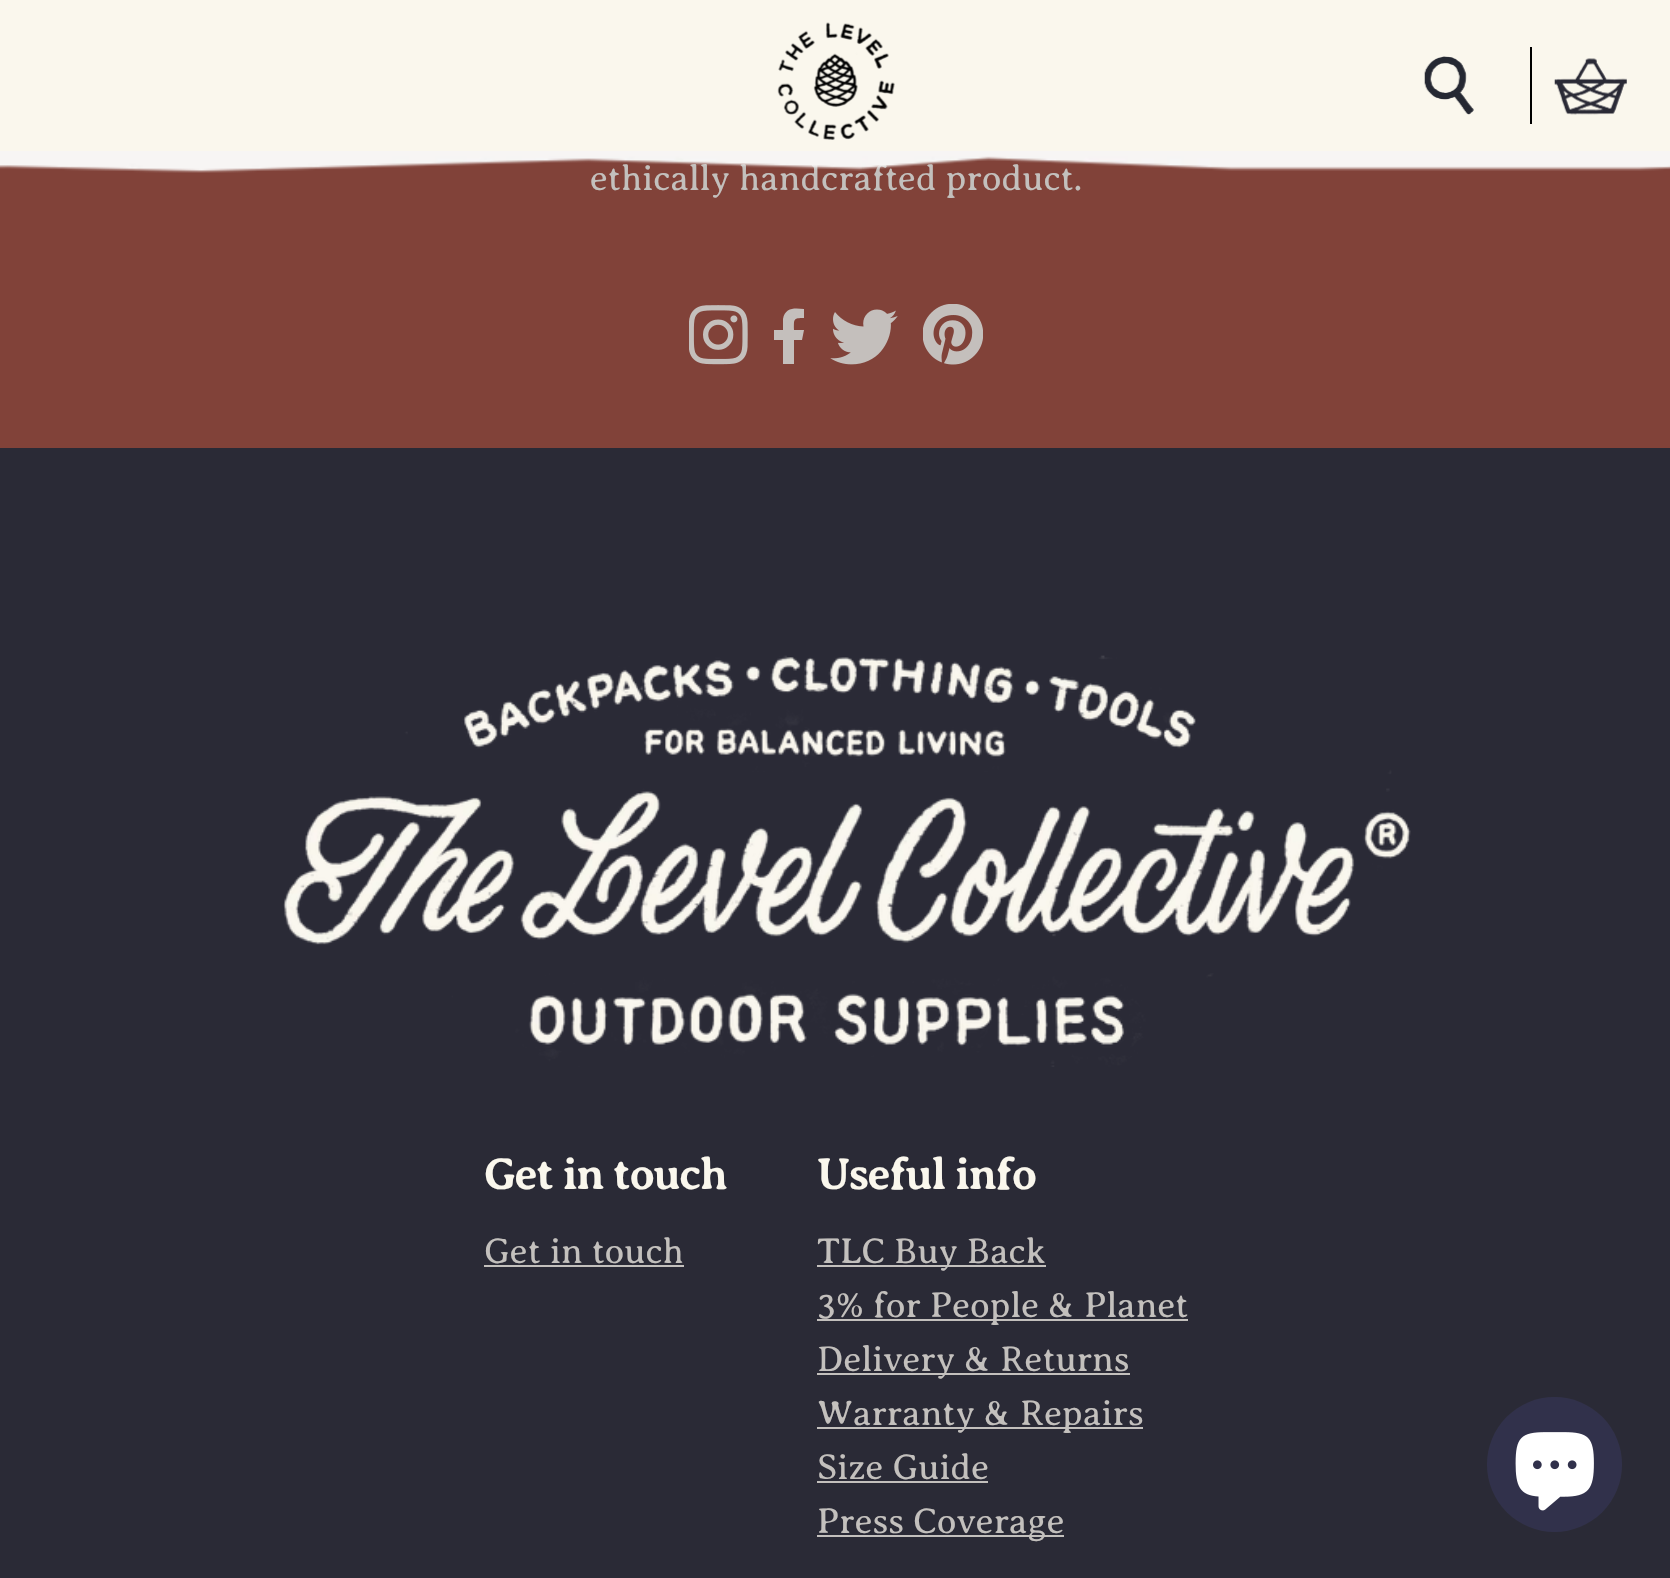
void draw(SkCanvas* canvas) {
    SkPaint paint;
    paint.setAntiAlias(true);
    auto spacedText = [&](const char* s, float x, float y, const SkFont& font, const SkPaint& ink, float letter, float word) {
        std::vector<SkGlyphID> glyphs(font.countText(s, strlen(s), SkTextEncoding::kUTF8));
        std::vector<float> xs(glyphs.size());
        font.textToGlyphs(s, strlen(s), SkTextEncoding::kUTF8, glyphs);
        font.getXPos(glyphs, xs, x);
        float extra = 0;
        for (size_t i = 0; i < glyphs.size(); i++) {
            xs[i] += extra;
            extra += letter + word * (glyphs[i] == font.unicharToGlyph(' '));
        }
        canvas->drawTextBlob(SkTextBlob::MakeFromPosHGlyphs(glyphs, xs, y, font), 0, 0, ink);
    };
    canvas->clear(0xFF2A2A36);
    paint.setColor(0xFFFAF7ED);
    canvas->drawRect(SkRect::MakeXYWH(0, 0, 1670, 151), paint);
    canvas->drawImageRect(SkImages::DeferredFromEncodedData(SkData::MakeFromFileName("img1.png")), SkRect::MakeXYWH(777, 22, 118, 118), SkSamplingOptions());
    canvas->drawImageRect(SkImages::DeferredFromEncodedData(SkData::MakeFromFileName("img2.png")), SkRect::MakeXYWH(1424, 56, 50, 59), SkSamplingOptions());
    paint.setColor(0xFF000000);
    canvas->drawRect(SkRect::MakeXYWH(1530, 47, 2, 77), paint);
    canvas->drawImageRect(SkImages::DeferredFromEncodedData(SkData::MakeFromFileName("img3.png")), SkRect::MakeXYWH(1554, 58, 73, 57), SkSamplingOptions());
    paint.setColor(0xFF814239);
    canvas->drawRect(SkRect::MakeXYWH(0, 156, 1670, 292), paint);
    SkFont font1(fontMgr->matchFamilyStyle("Averia Serif Libre", SkFontStyle(300, SkFontStyle::kNormal_Width, SkFontStyle::kUpright_Slant)), 36);
    font1.setSubpixel(true);
    paint.setColor(0xFFC3C0BD);
    canvas->drawString("ethically handcrafted product.", 590, 190, font1, paint);
    canvas->drawImageRect(SkImages::DeferredFromEncodedData(SkData::MakeFromFileName("img4.png")), SkRect::MakeXYWH(0, 151, 1670, 22), SkSamplingOptions());
    canvas->drawImageRect(SkImages::DeferredFromEncodedData(SkData::MakeFromFileName("img5.png")), SkRect::MakeXYWH(689, 305, 59, 60), SkSamplingOptions());
    paint.setColor(0xFFC4BFBC);
    canvas->drawPath(SkPathBuilder().moveTo(794, 364).lineTo(794, 340).lineTo(802, 340).lineTo(804, 330).lineTo(794, 330).cubicTo(794, 319, 793, 318, 804, 318).lineTo(804, 309).cubicTo(795, 308, 785, 307, 783, 319).lineTo(783, 330).lineTo(774, 330).lineTo(774, 340).lineTo(783, 340).lineTo(783, 364).close().detach(), paint);
    canvas->drawImageRect(SkImages::DeferredFromEncodedData(SkData::MakeFromFileName("img6.png")), SkRect::MakeXYWH(830, 309, 68, 56), SkSamplingOptions());
    canvas->drawImageRect(SkImages::DeferredFromEncodedData(SkData::MakeFromFileName("img7.png")), SkRect::MakeXYWH(923, 304, 60, 61), SkSamplingOptions());
    canvas->drawImageRect(SkImages::DeferredFromEncodedData(SkData::MakeFromFileName("img8.png")), SkRect::MakeXYWH(283, 655, 1128, 412), SkSamplingOptions());
    SkFont font2(fontMgr->matchFamilyStyle("Averia Serif Libre", SkFontStyle::Bold()), 45);
    font2.setSubpixel(true);
    paint.setColor(0xFFFAF7ED);
    spacedText("Get in touch", 484, 1189, font2, paint, -1.4f, 0);
    paint.setColor(0xFFC3C0BD);
    canvas->drawString("Get in touch", 484, 1263, font1, paint);
    canvas->drawRect(SkRect::MakeXYWH(484, 1265, 200, 2), paint);
    paint.setColor(0xFFFAF7ED);
    spacedText("Useful info", 817, 1189, font2, paint, -1.4f, 0);
    paint.setColor(0xFFC3C0BD);
    canvas->drawRect(SkRect::MakeXYWH(817, 1265, 229, 2), paint);
    canvas->drawString("TLC Buy Back", 817, 1263, font1, paint);
    canvas->drawRect(SkRect::MakeXYWH(817, 1319, 371, 2), paint);
    canvas->drawString("3% for People & Planet", 817, 1317, font1, paint);
    canvas->drawRect(SkRect::MakeXYWH(817, 1373, 313, 2), paint);
    canvas->drawString("Delivery & Returns", 817, 1371, font1, paint);
    canvas->drawRect(SkRect::MakeXYWH(817, 1427, 326, 2), paint);
    canvas->drawString("Warranty & Repairs", 817, 1425, font1, paint);
    canvas->drawString("Size Guide", 817, 1479, font1, paint);
    canvas->drawRect(SkRect::MakeXYWH(817, 1481, 171, 2), paint);
    canvas->drawRect(SkRect::MakeXYWH(817, 1535, 247, 2), paint);
    canvas->drawString("Press Coverage", 817, 1533, font1, paint);
    paint.setColor(0xFF31314B);
    canvas->drawCircle(1554.5f, 1464.5f, 67.5f, paint);
    canvas->drawImageRect(SkImages::DeferredFromEncodedData(SkData::MakeFromFileName("img9.png")), SkRect::MakeXYWH(1515, 1432, 79, 79), SkSamplingOptions());
}
